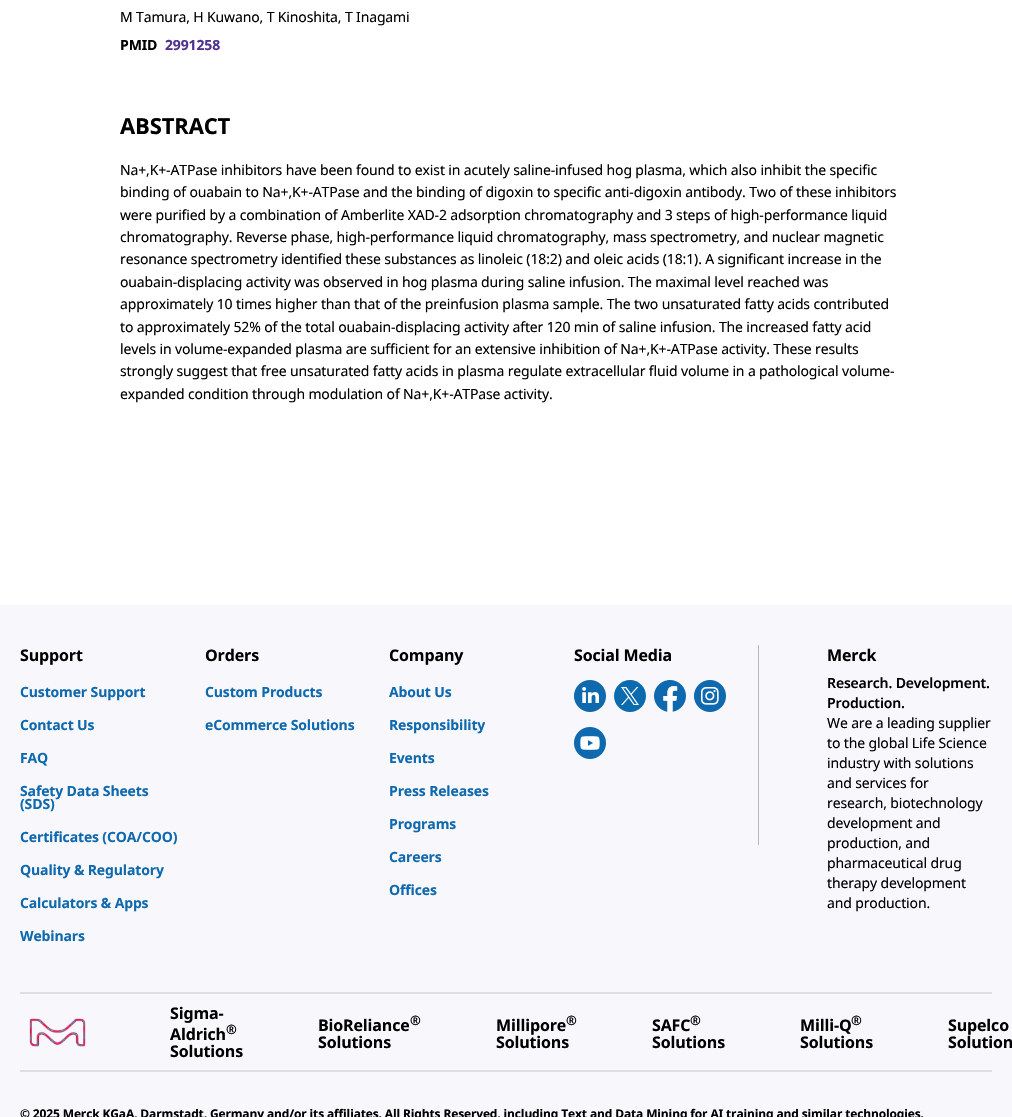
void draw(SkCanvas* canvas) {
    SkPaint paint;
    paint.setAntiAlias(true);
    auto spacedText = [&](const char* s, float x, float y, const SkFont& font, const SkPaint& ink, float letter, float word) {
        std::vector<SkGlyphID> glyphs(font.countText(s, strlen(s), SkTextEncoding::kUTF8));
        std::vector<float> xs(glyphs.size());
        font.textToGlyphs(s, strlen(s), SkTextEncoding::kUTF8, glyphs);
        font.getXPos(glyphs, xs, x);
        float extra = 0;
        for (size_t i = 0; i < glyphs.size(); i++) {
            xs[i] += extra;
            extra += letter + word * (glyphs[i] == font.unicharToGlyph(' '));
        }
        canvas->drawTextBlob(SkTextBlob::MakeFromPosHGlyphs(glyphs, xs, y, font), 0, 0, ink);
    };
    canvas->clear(0xFFFFFFFF);
    SkFont font1(fontMgr->matchFamilyStyle("Noto Sans", SkFontStyle::Normal()), 14);
    font1.setSubpixel(true);
    paint.setColor(0xFF000000);
    spacedText("M Tamura, H Kuwano, T Kinoshita, T Inagami", 120, 22, font1, paint, -0.14f, 0);
    SkFont font2(fontMgr->matchFamilyStyle("Noto Sans", SkFontStyle::Bold()), 14);
    font2.setSubpixel(true);
    spacedText("PMID", 120, 50, font2, paint, -0.14f, 0);
    paint.setColor(0xFF503191);
    spacedText("2991258", 165, 50, font2, paint, -0.14f, 0);
    SkFont font3(fontMgr->matchFamilyStyle("Noto Sans", SkFontStyle::Bold()), 22);
    font3.setSubpixel(true);
    paint.setColor(0xFF000000);
    spacedText("ABSTRACT", 120, 134, font3, paint, -0.14f, 0);
    spacedText("Na+,K+-ATPase inhibitors have been found to exist in acutely saline-infused hog plasma, which also inhibit the specific", 120, 175, font1, paint, -0.14f, 0);
    spacedText("binding of ouabain to Na+,K+-ATPase and the binding of digoxin to specific anti-digoxin antibody. Two of these inhibitors", 120, 197, font1, paint, -0.14f, 0);
    spacedText("were purified by a combination of Amberlite XAD-2 adsorption chromatography and 3 steps of high-performance liquid", 120, 220, font1, paint, -0.14f, 0);
    spacedText("chromatography. Reverse phase, high-performance liquid chromatography, mass spectrometry, and nuclear magnetic", 120, 242, font1, paint, -0.14f, 0);
    spacedText("resonance spectrometry identified these substances as linoleic (18:2) and oleic acids (18:1). A significant increase in the", 120, 264, font1, paint, -0.14f, 0);
    spacedText("ouabain-displacing activity was observed in hog plasma during saline infusion. The maximal level reached was", 120, 287, font1, paint, -0.14f, 0);
    spacedText("approximately 10 times higher than that of the preinfusion plasma sample. The two unsaturated fatty acids contributed", 120, 309, font1, paint, -0.14f, 0);
    spacedText("to approximately 52% of the total ouabain-displacing activity after 120 min of saline infusion. The increased fatty acid", 120, 332, font1, paint, -0.14f, 0);
    spacedText("levels in volume-expanded plasma are sufficient for an extensive inhibition of Na+,K+-ATPase activity. These results", 120, 354, font1, paint, -0.14f, 0);
    spacedText("strongly suggest that free unsaturated fatty acids in plasma regulate extracellular fluid volume in a pathological volume-", 120, 376, font1, paint, -0.14f, 0);
    spacedText("expanded condition through modulation of Na+,K+-ATPase activity.", 120, 399, font1, paint, -0.14f, 0);
    paint.setColor(0xFFF8F8FC);
    canvas->drawRect(SkRect::MakeXYWH(0, 605, 1012, 512), paint);
    SkFont font4(fontMgr->matchFamilyStyle("Noto Sans", SkFontStyle::Bold()), 16);
    font4.setSubpixel(true);
    paint.setColor(0xFF000000);
    spacedText("Support", 20, 661, font4, paint, -0.14f, 0);
    paint.setColor(0xFF0F69AF);
    spacedText("Customer Support", 20, 697, font2, paint, -0.14f, 0);
    spacedText("Contact Us", 20, 730, font2, paint, -0.14f, 0);
    spacedText("FAQ", 20, 763, font2, paint, -0.14f, 0);
    spacedText("Safety Data Sheets", 20, 796, font2, paint, -0.14f, 0);
    spacedText("(SDS)", 20, 809, font2, paint, -0.14f, 0);
    spacedText("Certificates (COA/COO)", 20, 842, font2, paint, -0.14f, 0);
    spacedText("Quality & Regulatory", 20, 875, font2, paint, -0.14f, 0);
    spacedText("Calculators & Apps", 20, 908, font2, paint, -0.14f, 0);
    spacedText("Webinars", 20, 941, font2, paint, -0.14f, 0);
    paint.setColor(0xFF000000);
    spacedText("Orders", 205, 661, font4, paint, -0.14f, 0);
    paint.setColor(0xFF0F69AF);
    spacedText("Custom Products", 205, 697, font2, paint, -0.14f, 0);
    spacedText("eCommerce Solutions", 205, 730, font2, paint, -0.14f, 0);
    paint.setColor(0xFF000000);
    spacedText("Company", 389, 661, font4, paint, -0.14f, 0);
    paint.setColor(0xFF0F69AF);
    spacedText("About Us", 389, 697, font2, paint, -0.14f, 0);
    spacedText("Responsibility", 389, 730, font2, paint, -0.14f, 0);
    spacedText("Events", 389, 763, font2, paint, -0.14f, 0);
    spacedText("Press Releases", 389, 796, font2, paint, -0.14f, 0);
    spacedText("Programs", 389, 829, font2, paint, -0.14f, 0);
    spacedText("Careers", 389, 862, font2, paint, -0.14f, 0);
    spacedText("Offices", 389, 895, font2, paint, -0.14f, 0);
    paint.setColor(0xFF000000);
    spacedText("Social Media", 574, 661, font4, paint, -0.14f, 0);
    canvas->drawImageRect(SkImages::DeferredFromEncodedData(SkData::MakeFromFileName("img1.png")), SkRect::MakeXYWH(574, 680, 32, 32), SkSamplingOptions());
    canvas->drawImageRect(SkImages::DeferredFromEncodedData(SkData::MakeFromFileName("img2.png")), SkRect::MakeXYWH(614, 680, 32, 32), SkSamplingOptions());
    canvas->drawImageRect(SkImages::DeferredFromEncodedData(SkData::MakeFromFileName("img3.png")), SkRect::MakeXYWH(654, 680, 32, 32), SkSamplingOptions());
    canvas->drawImageRect(SkImages::DeferredFromEncodedData(SkData::MakeFromFileName("img4.png")), SkRect::MakeXYWH(694, 680, 32, 32), SkSamplingOptions());
    canvas->drawImageRect(SkImages::DeferredFromEncodedData(SkData::MakeFromFileName("img5.png")), SkRect::MakeXYWH(574, 727, 32, 32), SkSamplingOptions());
    paint.setColor(0xFFB8B8BA);
    canvas->drawRect(SkRect::MakeXYWH(758, 645, 1, 200), paint);
    paint.setColor(0xFF000000);
    spacedText("Merck", 827, 661, font4, paint, -0.14f, 0);
    SkFont font5(fontMgr->matchFamilyStyle("Noto Sans", SkFontStyle(600, SkFontStyle::kNormal_Width, SkFontStyle::kUpright_Slant)), 14);
    font5.setSubpixel(true);
    spacedText("Research. Development.", 827, 688, font5, paint, -0.14f, 0);
    spacedText("Production.", 827, 708, font5, paint, -0.14f, 0);
    spacedText("We are a leading supplier", 827, 728, font1, paint, -0.14f, 0);
    spacedText("to the global Life Science", 827, 748, font1, paint, -0.14f, 0);
    spacedText("industry with solutions", 827, 768, font1, paint, -0.14f, 0);
    spacedText("and services for", 827, 788, font1, paint, -0.14f, 0);
    spacedText("research, biotechnology", 827, 808, font1, paint, -0.14f, 0);
    spacedText("development and", 827, 828, font1, paint, -0.14f, 0);
    spacedText("production, and", 827, 848, font1, paint, -0.14f, 0);
    spacedText("pharmaceutical drug", 827, 868, font1, paint, -0.14f, 0);
    spacedText("therapy development", 827, 888, font1, paint, -0.14f, 0);
    spacedText("and production.", 827, 908, font1, paint, -0.14f, 0);
    paint.setColor(0xFFDFDFE3);
    canvas->drawRect(SkRect::MakeXYWH(20, 992, 972, 2), paint);
    canvas->drawRect(SkRect::MakeXYWH(20, 1070, 972, 2), paint);
    canvas->drawImageRect(SkImages::DeferredFromEncodedData(SkData::MakeFromFileName("img6.png")), SkRect::MakeXYWH(29, 1018, 57, 29), SkSamplingOptions());
    paint.setColor(0xFF000000);
    spacedText("Sigma-", 170, 1019, font4, paint, -0.14f, 0);
    spacedText("Aldrich", 170, 1040, font4, paint, -0.14f, 0);
    SkFont font6(fontMgr->matchFamilyStyle("Noto Sans", SkFontStyle::Bold()), 13);
    font6.setSubpixel(true);
    spacedText("®", 226, 1034, font6, paint, -0.14f, 0);
    spacedText("Solutions", 170, 1057, font4, paint, -0.14f, 0);
    spacedText("BioReliance", 318, 1031, font4, paint, -0.14f, 0);
    spacedText("®", 410, 1025, font6, paint, -0.14f, 0);
    spacedText("Solutions", 318, 1048, font4, paint, -0.14f, 0);
    spacedText("Millipore", 496, 1031, font4, paint, -0.14f, 0);
    spacedText("®", 566, 1025, font6, paint, -0.14f, 0);
    spacedText("Solutions", 496, 1048, font4, paint, -0.14f, 0);
    spacedText("SAFC", 652, 1031, font4, paint, -0.14f, 0);
    spacedText("®", 690, 1025, font6, paint, -0.14f, 0);
    spacedText("Solutions", 652, 1048, font4, paint, -0.14f, 0);
    spacedText("Milli-Q", 800, 1031, font4, paint, -0.14f, 0);
    spacedText("®", 851, 1025, font6, paint, -0.14f, 0);
    spacedText("Solutions", 800, 1048, font4, paint, -0.14f, 0);
    spacedText("Supelco", 948, 1031, font4, paint, -0.14f, 0);
    spacedText("Solution", 948, 1048, font4, paint, -0.14f, 0);
    SkFont font7(fontMgr->matchFamilyStyle("Noto Sans", SkFontStyle::Bold()), 12);
    font7.setSubpixel(true);
    spacedText("© 2025 Merck KGaA, Darmstadt, Germany and/or its affiliates. All Rights Reserved, including Text and Data Mining for AI training and similar technologies.", 20, 1118, font7, paint, -0.14f, 0);
}
